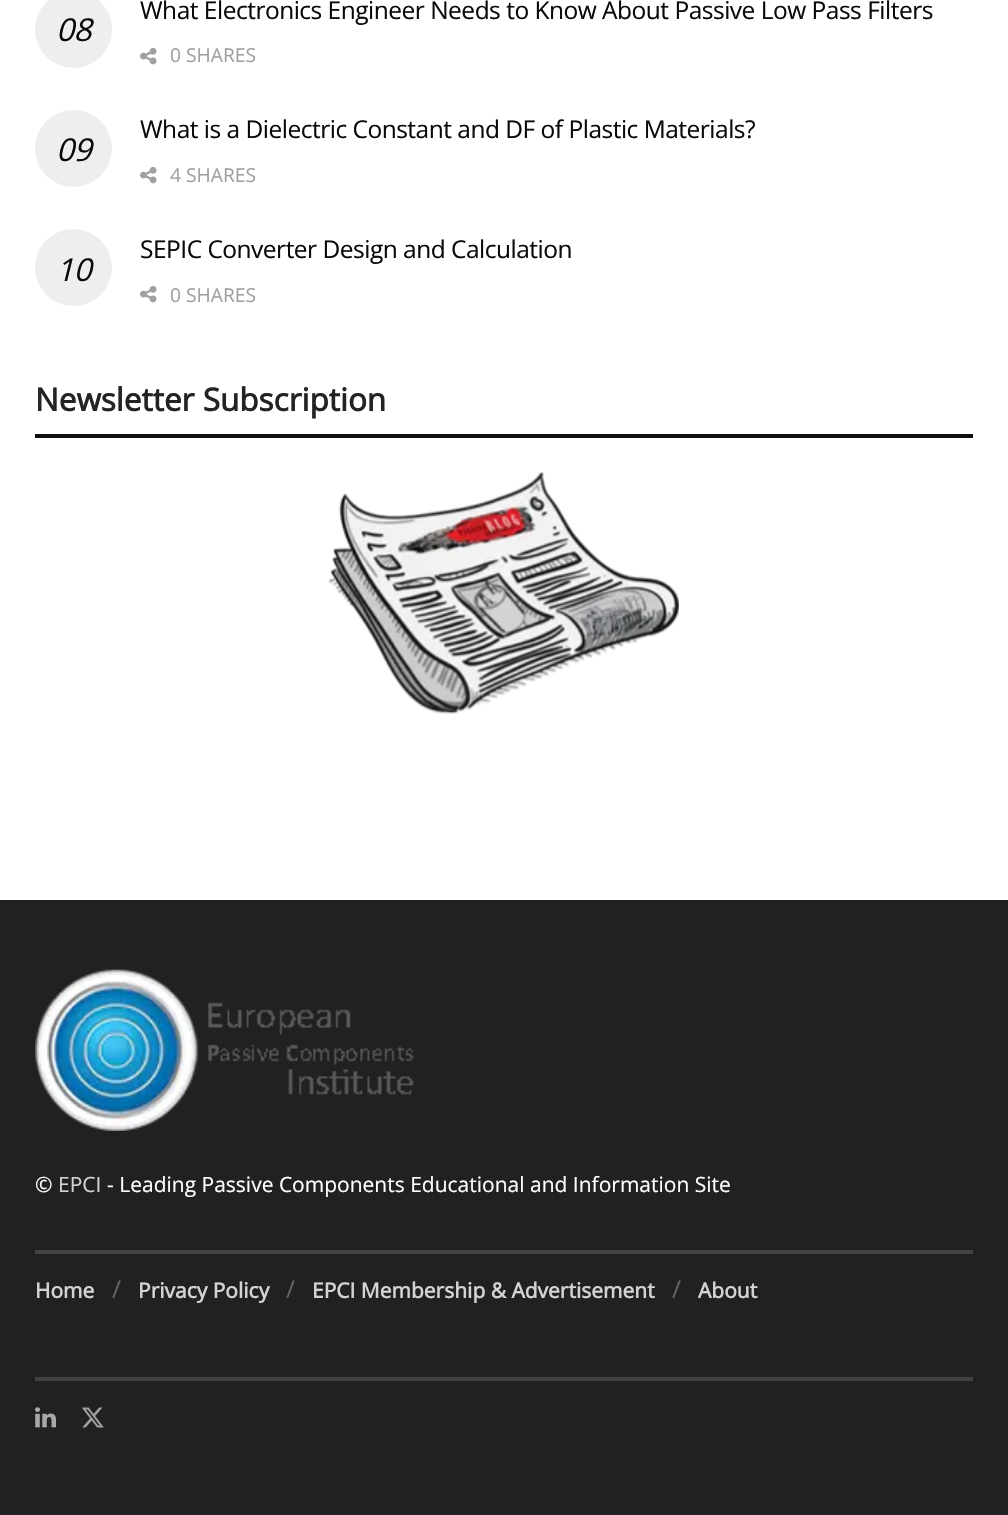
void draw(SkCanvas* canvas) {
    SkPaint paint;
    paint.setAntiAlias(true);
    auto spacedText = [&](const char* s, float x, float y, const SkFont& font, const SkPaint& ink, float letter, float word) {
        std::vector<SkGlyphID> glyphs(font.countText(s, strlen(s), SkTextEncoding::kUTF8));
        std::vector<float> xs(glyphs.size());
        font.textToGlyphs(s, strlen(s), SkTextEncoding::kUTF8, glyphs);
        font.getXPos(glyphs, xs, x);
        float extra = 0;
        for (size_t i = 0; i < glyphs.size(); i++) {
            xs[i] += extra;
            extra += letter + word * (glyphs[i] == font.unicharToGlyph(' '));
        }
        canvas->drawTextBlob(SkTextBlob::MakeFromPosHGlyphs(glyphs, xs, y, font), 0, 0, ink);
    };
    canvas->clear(0xFFFFFFFF);
    SkFont font1(fontMgr->matchFamilyStyle("Open Sans", SkFontStyle::Normal()), 24.5f);
    font1.setSubpixel(true);
    paint.setColor(0xFF0A0A0A);
    spacedText("What Electronics Engineer Needs to Know About Passive Low Pass Filters", 140, 19, font1, paint, -0.5f, 0);
    paint.setColor(0xFFEEEEEE);
    canvas->drawCircle(73.5f, 29.5f, 38.5f, paint);
    SkFont font2(fontMgr->matchFamilyStyle("Open Sans", SkFontStyle::Italic()), 31.5f);
    font2.setSubpixel(true);
    paint.setColor(0xFF0A0A0A);
    spacedText("08", 56, 41, font2, paint, -0.5f, 0);
    canvas->drawImageRect(SkImages::DeferredFromEncodedData(SkData::MakeFromFileName("img1.png")), SkRect::MakeXYWH(140, 47, 17, 18), SkSamplingOptions());
    SkFont font3(fontMgr->matchFamilyStyle("Open Sans", SkFontStyle::Normal()), 19.25f);
    font3.setSubpixel(true);
    paint.setColor(0xFFA0A0A0);
    canvas->drawString("0 SHARES", 170, 62, font3, paint);
    paint.setColor(0xFF0A0A0A);
    spacedText("What is a Dielectric Constant and DF of Plastic Materials?", 140, 138, font1, paint, -0.5f, 0);
    paint.setColor(0xFFEEEEEE);
    canvas->drawCircle(73.5f, 148.5f, 38.5f, paint);
    paint.setColor(0xFF0A0A0A);
    spacedText("09", 56, 161, font2, paint, -0.5f, 0);
    canvas->drawImageRect(SkImages::DeferredFromEncodedData(SkData::MakeFromFileName("img2.png")), SkRect::MakeXYWH(140, 166, 17, 18), SkSamplingOptions());
    paint.setColor(0xFFA0A0A0);
    canvas->drawString("4 SHARES", 170, 182, font3, paint);
    paint.setColor(0xFF0A0A0A);
    spacedText("SEPIC Converter Design and Calculation", 140, 258, font1, paint, -0.5f, 0);
    paint.setColor(0xFFEEEEEE);
    canvas->drawCircle(73.5f, 267.5f, 38.5f, paint);
    paint.setColor(0xFF0A0A0A);
    spacedText("10", 56, 281, font2, paint, -0.5f, 0);
    canvas->drawImageRect(SkImages::DeferredFromEncodedData(SkData::MakeFromFileName("img2.png")), SkRect::MakeXYWH(140, 285, 17, 18), SkSamplingOptions());
    paint.setColor(0xFFA0A0A0);
    canvas->drawString("0 SHARES", 170, 302, font3, paint);
    paint.setColor(0xFF0F0F0F);
    canvas->drawRect(SkRect::MakeXYWH(35, 434, 938, 4), paint);
    SkFont font4(fontMgr->matchFamilyStyle("Open Sans", SkFontStyle::Bold()), 31.5f);
    font4.setSubpixel(true);
    paint.setColor(0xFF232323);
    canvas->drawString("Newsletter Subscription", 35, 411, font4, paint);
    canvas->drawImageRect(SkImages::DeferredFromEncodedData(SkData::MakeFromFileName("img3.png")), SkRect::MakeXYWH(329, 472, 350, 242), SkSamplingOptions());
    paint.setColor(0xFF212121);
    canvas->drawRect(SkRect::MakeXYWH(0, 900, 1008, 615), paint);
    canvas->drawImageRect(SkImages::DeferredFromEncodedData(SkData::MakeFromFileName("img4.png")), SkRect::MakeXYWH(35, 969, 379, 162), SkSamplingOptions());
    SkFont font5(fontMgr->matchFamilyStyle("Open Sans", SkFontStyle::Normal()), 21);
    font5.setSubpixel(true);
    paint.setColor(0xFFFFFFFF);
    canvas->drawString("©", 35, 1192, font5, paint);
    paint.setColor(0xFFD3D3D3);
    canvas->drawString("EPCI", 58, 1192, font5, paint);
    paint.setColor(0xFFFFFFFF);
    canvas->drawString("- Leading Passive Components Educational and Information Site", 107, 1192, font5, paint);
    paint.setColor(0xFF424242);
    canvas->drawRect(SkRect::MakeXYWH(35, 1250, 938, 4), paint);
    SkFont font6(fontMgr->matchFamilyStyle("Open Sans", SkFontStyle::Bold()), 21);
    font6.setSubpixel(true);
    paint.setColor(0xFFD3D3D3);
    canvas->drawString("Home", 35, 1298, font6, paint);
    paint.setColor(0xFF646464);
    canvas->drawString("/", 112, 1298, font1, paint);
    paint.setColor(0xFFD3D3D3);
    canvas->drawString("Privacy Policy", 138, 1298, font6, paint);
    paint.setColor(0xFF646464);
    canvas->drawString("/", 286, 1298, font1, paint);
    paint.setColor(0xFFD3D3D3);
    canvas->drawString("EPCI Membership & Advertisement", 312, 1298, font6, paint);
    paint.setColor(0xFF646464);
    canvas->drawString("/", 672, 1298, font1, paint);
    paint.setColor(0xFFD3D3D3);
    canvas->drawString("About", 698, 1298, font6, paint);
    paint.setColor(0xFF424242);
    canvas->drawRect(SkRect::MakeXYWH(35, 1377, 938, 4), paint);
    canvas->drawImageRect(SkImages::DeferredFromEncodedData(SkData::MakeFromFileName("img5.png")), SkRect::MakeXYWH(35, 1407, 21, 21), SkSamplingOptions());
    canvas->drawImageRect(SkImages::DeferredFromEncodedData(SkData::MakeFromFileName("img6.png")), SkRect::MakeXYWH(81, 1407, 23, 21), SkSamplingOptions());
}
